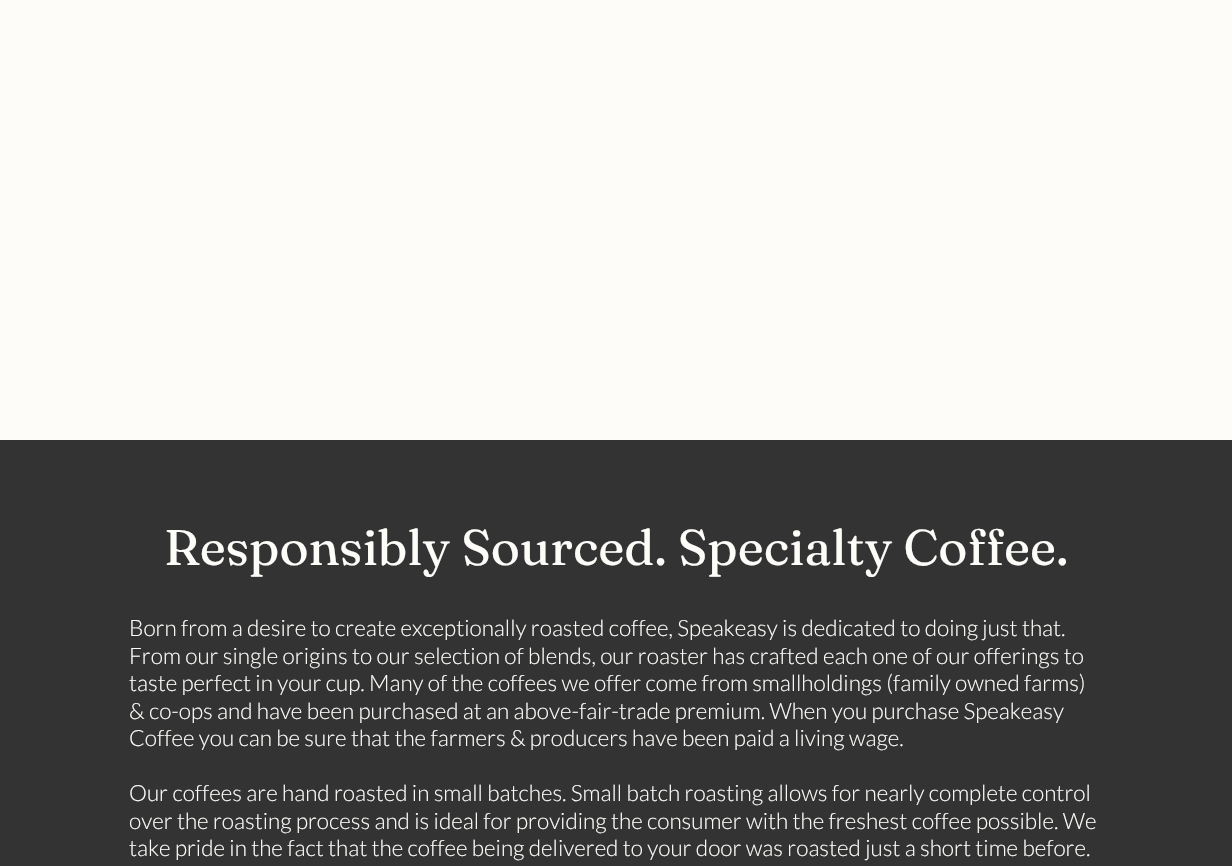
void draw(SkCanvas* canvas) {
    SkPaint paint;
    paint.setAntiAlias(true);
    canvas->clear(0xFFFDFCF9);
    paint.setColor(0xFF333333);
    canvas->drawRect(SkRect::MakeXYWH(0, 440, 1232, 426), paint);
    SkFont font1(fontMgr->matchFamilyStyle("Fraunces", SkFontStyle::Normal()), 50);
    font1.setSubpixel(true);
    paint.setColor(0xFFFDFCF9);
    canvas->drawString("Responsibly Sourced. Specialty Coffee.", 164, 565, font1, paint);
    SkFont font2(fontMgr->matchFamilyStyle("Lato", SkFontStyle(300, SkFontStyle::kNormal_Width, SkFontStyle::kUpright_Slant)), 22.5f);
    font2.setSubpixel(true);
    canvas->drawString("Born from a desire to create exceptionally roasted coffee, Speakeasy is dedicated to doing just that.", 129, 636, font2, paint);
    canvas->drawString("From our single origins to our selection of blends, our roaster has crafted each one of our offerings to", 129, 664, font2, paint);
    canvas->drawString("taste perfect in your cup. Many of the coffees we offer come from smallholdings (family owned farms)", 129, 691, font2, paint);
    canvas->drawString("& co-ops and have been purchased at an above-fair-trade premium. When you purchase Speakeasy", 129, 719, font2, paint);
    canvas->drawString("Coffee you can be sure that the farmers & producers have been paid a living wage.", 129, 746, font2, paint);
    canvas->drawString("Our coffees are hand roasted in small batches. Small batch roasting allows for nearly complete control", 129, 801, font2, paint);
    canvas->drawString("over the roasting process and is ideal for providing the consumer with the freshest coffee possible. We", 129, 829, font2, paint);
    canvas->drawString("take pride in the fact that the coffee being delivered to your door was roasted just a short time before.", 129, 856, font2, paint);
}
